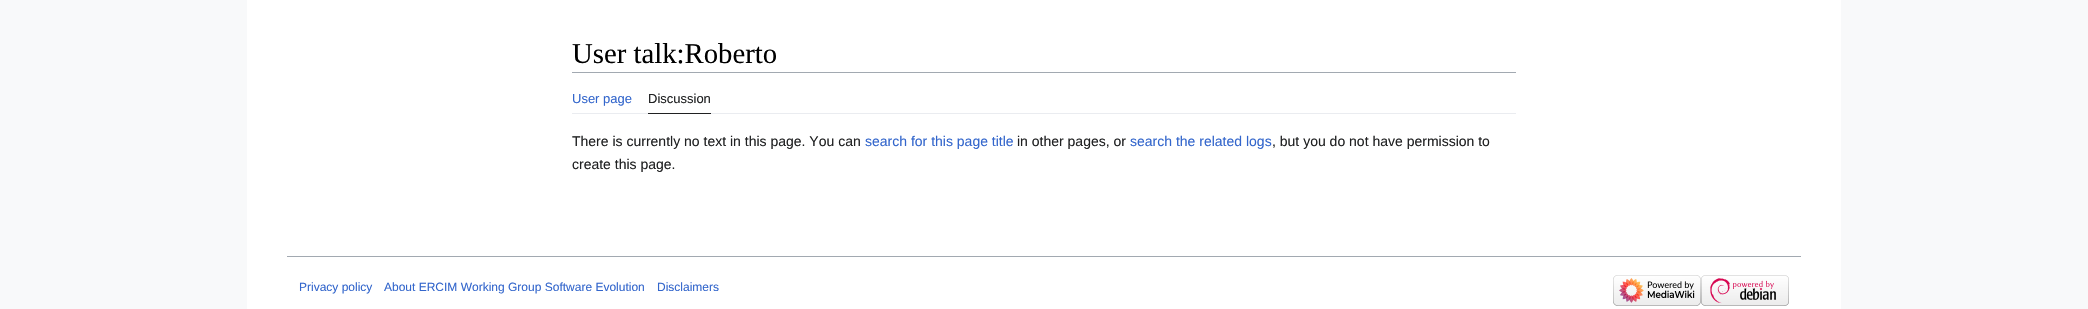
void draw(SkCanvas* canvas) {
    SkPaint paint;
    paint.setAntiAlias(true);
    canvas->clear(0xFFF8F9FA);
    paint.setColor(0xFFFFFFFF);
    canvas->drawRect(SkRect::MakeXYWH(247, 0, 1594, 309), paint);
    paint.setColor(0xFFA2A9B1);
    canvas->drawRect(SkRect::MakeXYWH(572, 72, 944, 1), paint);
    SkFont font1(fontMgr->matchFamilyStyle("Liberation Serif", SkFontStyle::Normal()), 28.75f);
    font1.setSubpixel(true);
    paint.setColor(0xFF000000);
    canvas->drawString("User talk:Roberto", 572, 63, font1, paint);
    paint.setColor(0xFFEAECF0);
    canvas->drawRect(SkRect::MakeXYWH(572, 113, 944, 1), paint);
    SkFont font2(fontMgr->matchFamilyStyle("Liberation Sans", SkFontStyle::Normal()), 13);
    font2.setSubpixel(true);
    paint.setColor(0xFF3366CC);
    canvas->drawString("User page", 572, 103, font2, paint);
    paint.setColor(0xFF202122);
    canvas->drawRect(SkRect::MakeXYWH(648, 113, 63, 1), paint);
    canvas->drawString("Discussion", 648, 103, font2, paint);
    SkFont font3(fontMgr->matchFamilyStyle("Liberation Sans", SkFontStyle::Normal()), 14);
    font3.setSubpixel(true);
    canvas->drawString("There is currently no text in this page. You can", 572, 146, font3, paint);
    paint.setColor(0xFF3366CC);
    canvas->drawString("search for this page title", 865, 146, font3, paint);
    paint.setColor(0xFF202122);
    canvas->drawString("in other pages, or", 1017, 146, font3, paint);
    paint.setColor(0xFF3366CC);
    canvas->drawString("search the related logs", 1130, 146, font3, paint);
    paint.setColor(0xFF202122);
    canvas->drawString(", but you do not have permission to", 1272, 146, font3, paint);
    canvas->drawString("create this page.", 572, 169, font3, paint);
    paint.setColor(0xFFA2A9B1);
    canvas->drawRect(SkRect::MakeXYWH(287, 256, 1514, 1), paint);
    SkFont font4(fontMgr->matchFamilyStyle("Liberation Sans", SkFontStyle::Normal()), 12);
    font4.setSubpixel(true);
    paint.setColor(0xFF3366CC);
    canvas->drawString("Privacy policy", 299, 291, font4, paint);
    canvas->drawString("About ERCIM Working Group Software Evolution", 384, 291, font4, paint);
    canvas->drawString("Disclaimers", 657, 291, font4, paint);
    canvas->drawImageRect(SkImages::DeferredFromEncodedData(SkData::MakeFromFileName("img1.png")), SkRect::MakeXYWH(1613, 275, 88, 31), SkSamplingOptions());
    canvas->drawImageRect(SkImages::DeferredFromEncodedData(SkData::MakeFromFileName("img2.png")), SkRect::MakeXYWH(1701, 275, 88, 31), SkSamplingOptions());
}
